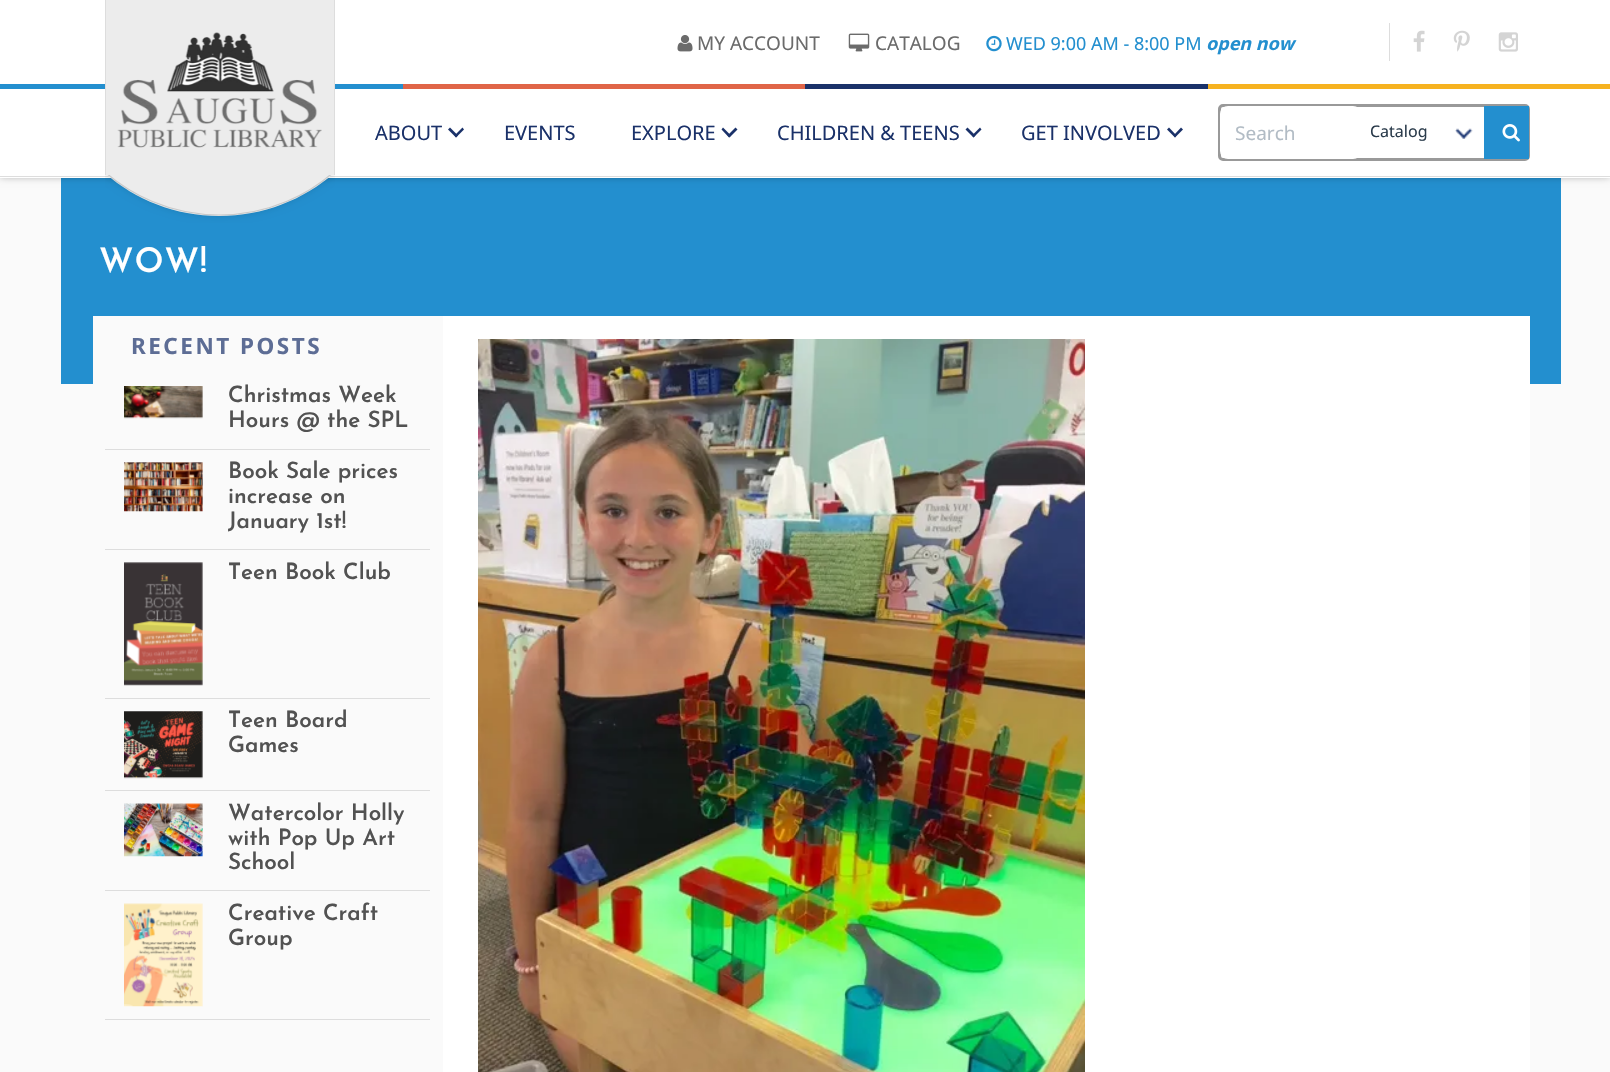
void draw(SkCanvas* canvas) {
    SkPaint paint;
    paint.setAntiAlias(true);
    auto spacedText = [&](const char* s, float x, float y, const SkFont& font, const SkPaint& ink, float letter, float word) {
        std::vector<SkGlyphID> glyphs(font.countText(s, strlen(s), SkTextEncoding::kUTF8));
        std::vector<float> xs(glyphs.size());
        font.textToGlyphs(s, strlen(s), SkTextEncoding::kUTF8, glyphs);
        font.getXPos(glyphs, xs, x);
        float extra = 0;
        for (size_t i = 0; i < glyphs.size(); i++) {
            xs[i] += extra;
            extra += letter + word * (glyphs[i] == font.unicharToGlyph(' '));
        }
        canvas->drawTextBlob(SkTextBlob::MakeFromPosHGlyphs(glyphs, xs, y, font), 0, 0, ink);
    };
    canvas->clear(0xFFFAFAFA);
    paint.setColor(0xFF238FCF);
    canvas->drawRect(SkRect::MakeXYWH(61, 178, 1500, 206), paint);
    paint.setColor(0x66000000);
    paint.setMaskFilter(SkMaskFilter::MakeBlur(kNormal_SkBlurStyle, 4));
    canvas->drawRect(SkRect::MakeXYWH(0, -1, 1610, 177), paint);
    paint.setMaskFilter(nullptr);
    paint.setColor(0xFFFFFFFF);
    canvas->drawRect(SkRect::MakeXYWH(0, 0, 1610, 178), paint);
    paint.setColor(0xFFDDDDDD);
    canvas->drawRect(SkRect::MakeXYWH(0, 176, 1610, 1), paint);
    canvas->drawImageRect(SkImages::DeferredFromEncodedData(SkData::MakeFromFileName("img1.png")), SkRect::MakeXYWH(677, 35, 16, 17), SkSamplingOptions());
    SkFont font1(fontMgr->matchFamilyStyle("Noto Sans", SkFontStyle::Normal()), 19);
    font1.setSubpixel(true);
    paint.setColor(0xFF6B6B6B);
    canvas->drawString("MY ACCOUNT", 697, 50, font1, paint);
    canvas->drawImageRect(SkImages::DeferredFromEncodedData(SkData::MakeFromFileName("img2.png")), SkRect::MakeXYWH(848, 33, 22, 19), SkSamplingOptions());
    canvas->drawString("CATALOG", 875, 50, font1, paint);
    canvas->drawImageRect(SkImages::DeferredFromEncodedData(SkData::MakeFromFileName("img3.png")), SkRect::MakeXYWH(986, 35, 16, 17), SkSamplingOptions());
    SkFont font2(fontMgr->matchFamilyStyle("Noto Sans", SkFontStyle::Normal()), 18);
    font2.setSubpixel(true);
    paint.setColor(0xFF238FCF);
    canvas->drawString("WED 9:00 AM - 8:00 PM", 1006, 50, font2, paint);
    SkFont font3(fontMgr->matchFamilyStyle("Noto Sans", SkFontStyle::BoldItalic()), 18);
    font3.setSubpixel(true);
    canvas->drawString("open now", 1206, 50, font3, paint);
    paint.setColor(0xFFDDDDDD);
    canvas->drawRect(SkRect::MakeXYWH(1389, 23, 1, 38), paint);
    canvas->drawImageRect(SkImages::DeferredFromEncodedData(SkData::MakeFromFileName("img4.png")), SkRect::MakeXYWH(1413, 30, 12, 22), SkSamplingOptions());
    canvas->drawImageRect(SkImages::DeferredFromEncodedData(SkData::MakeFromFileName("img5.png")), SkRect::MakeXYWH(1453, 30, 17, 22), SkSamplingOptions());
    canvas->drawImageRect(SkImages::DeferredFromEncodedData(SkData::MakeFromFileName("img6.png")), SkRect::MakeXYWH(1498, 32, 20, 20), SkSamplingOptions());
    paint.setColor(0xFF238FCF);
    canvas->drawRect(SkRect::MakeXYWH(0, 84, 403, 5), paint);
    paint.setColor(0xFFE06548);
    canvas->drawRect(SkRect::MakeXYWH(403, 84, 402, 5), paint);
    paint.setColor(0xFF1A3169);
    canvas->drawRect(SkRect::MakeXYWH(805, 84, 403, 5), paint);
    paint.setColor(0xFFF6B220);
    canvas->drawRect(SkRect::MakeXYWH(1208, 84, 402, 5), paint);
    canvas->save();
    canvas->clipRect(SkRect::MakeXYWH(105, 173, 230, 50));
    paint.setColor(0x26000000);
    paint.setMaskFilter(SkMaskFilter::MakeBlur(kNormal_SkBlurStyle, 4));
    canvas->drawRoundRect(SkRect::MakeXYWH(45, -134, 349, 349), 174.5f, 174.5f, paint);
    paint.setMaskFilter(nullptr);
    canvas->restore();
    canvas->save();
    canvas->clipRect(SkRect::MakeXYWH(105, 173, 230, 50));
    paint.setColor(0xFFECECEC);
    canvas->drawPath(SkPathBuilder().moveTo(219, 216).cubicTo(123, 216, 45, 138, 45, 41).cubicTo(45, -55, 123, -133, 219, -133).cubicTo(316, -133, 394, -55, 394, 41).cubicTo(394, 138, 316, 216, 219, 216).close().detach(), paint);
    paint.setStyle(SkPaint::kStroke_Style);
    paint.setStrokeWidth(1.2f);
    paint.setColor(0x26000000);
    canvas->drawPath(SkPathBuilder().moveTo(219.5f, 215).cubicTo(123.5f, 215, 45.5f, 137, 45.5f, 41.5f).cubicTo(45.5f, -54.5f, 123.5f, -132.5f, 219.5f, -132.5f).cubicTo(315.5f, -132.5f, 393, -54.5f, 393, 41.5f).cubicTo(393, 137, 315.5f, 215, 219.5f, 215).close().detach(), paint);
    canvas->restore();
    paint.setStyle(SkPaint::kFill_Style);
    paint.setColor(0xFFECECEC);
    canvas->drawRect(SkRect::MakeXYWH(106, 0, 228, 175), paint);
    paint.setColor(0xFFDDDDDD);
    canvas->drawRect(SkRect::MakeXYWH(334, 0, 1, 175), paint);
    canvas->drawRect(SkRect::MakeXYWH(105, 0, 1, 175), paint);
    canvas->drawImageRect(SkImages::DeferredFromEncodedData(SkData::MakeFromFileName("img7.png")), SkRect::MakeXYWH(117, 32, 205, 116), SkSamplingOptions());
    SkFont font4(fontMgr->matchFamilyStyle("Noto Sans", SkFontStyle::Normal()), 20);
    font4.setSubpixel(true);
    paint.setColor(0xFF1A3169);
    canvas->drawString("ABOUT", 375, 140, font4, paint);
    canvas->drawPath(SkPathBuilder().moveTo(450, 127.5f).lineTo(458, 135.5f).lineTo(456, 137.5f).lineTo(448, 129.5f).close().detach(), paint);
    canvas->drawPath(SkPathBuilder().moveTo(454.5f, 135.5f).lineTo(462.5f, 127.5f).lineTo(464, 129.5f).lineTo(456, 137.5f).close().detach(), paint);
    canvas->drawString("EVENTS", 504, 140, font4, paint);
    canvas->drawString("EXPLORE", 631, 140, font4, paint);
    canvas->drawPath(SkPathBuilder().moveTo(723, 127.5f).lineTo(731, 135.5f).lineTo(729, 137.5f).lineTo(721.5f, 129.5f).close().detach(), paint);
    canvas->drawPath(SkPathBuilder().moveTo(727.5f, 135.5f).lineTo(735.5f, 127.5f).lineTo(737.5f, 129.5f).lineTo(729.5f, 137.5f).close().detach(), paint);
    canvas->drawString("CHILDREN & TEENS", 777, 140, font4, paint);
    canvas->drawPath(SkPathBuilder().moveTo(967.5f, 127.5f).lineTo(975.5f, 135.5f).lineTo(973.5f, 137.5f).lineTo(965.5f, 129.5f).close().detach(), paint);
    canvas->drawPath(SkPathBuilder().moveTo(972, 135.5f).lineTo(980, 127.5f).lineTo(981.5f, 129.5f).lineTo(973.5f, 137.5f).close().detach(), paint);
    canvas->drawString("GET INVOLVED", 1021, 140, font4, paint);
    canvas->drawPath(SkPathBuilder().moveTo(1169, 127.5f).lineTo(1176.5f, 135.5f).lineTo(1175, 137.5f).lineTo(1167, 129.5f).close().detach(), paint);
    canvas->drawPath(SkPathBuilder().moveTo(1173.5f, 135.5f).lineTo(1181, 127.5f).lineTo(1183, 129.5f).lineTo(1175, 137.5f).close().detach(), paint);
    paint.setStyle(SkPaint::kStroke_Style);
    paint.setStrokeWidth(3);
    paint.setColor(0xFF999999);
    canvas->drawRoundRect(SkRect::MakeXYWH(1219.5f, 105.5f, 309, 54), 3.5f, 3.5f, paint);
    paint.setStyle(SkPaint::kFill_Style);
    paint.setColor(0xFFFFFFFF);
    canvas->drawRoundRect(SkRect::MakeXYWH(1220, 106, 141, 53), 8, 8, paint);
    paint.setColor(0xFFB2BCC5);
    canvas->drawString("Search", 1235, 140, font1, paint);
    canvas->drawImageRect(SkImages::DeferredFromEncodedData(SkData::MakeFromFileName("img8.png")), SkRect::MakeXYWH(1455, 128, 18, 11), SkSamplingOptions());
    SkFont font5(fontMgr->matchFamilyStyle("Noto Sans", SkFontStyle::Normal()), 16);
    font5.setSubpixel(true);
    paint.setColor(0xFF293A4A);
    canvas->drawString("Catalog", 1370, 137, font5, paint);
    paint.setColor(0xFF238FCF);
    canvas->drawRect(SkRect::MakeXYWH(1484, 106, 45, 53), paint);
    canvas->drawImageRect(SkImages::DeferredFromEncodedData(SkData::MakeFromFileName("img9.png")), SkRect::MakeXYWH(1502, 124, 18, 18), SkSamplingOptions());
    SkFont font6(fontMgr->matchFamilyStyle("Josefin Sans", SkFontStyle(600, SkFontStyle::kNormal_Width, SkFontStyle::kUpright_Slant)), 34);
    font6.setSubpixel(true);
    paint.setColor(0xFFFFFFFF);
    spacedText("WOW!", 99, 272, font6, paint, 1, 0);
    paint.setColor(0xFFFAFAFA);
    canvas->drawRect(SkRect::MakeXYWH(93, 316, 350, 68), paint);
    SkFont font7(fontMgr->matchFamilyStyle("Noto Sans", SkFontStyle::Bold()), 22.5f);
    font7.setSubpixel(true);
    paint.setColor(0xFF5D6D95);
    spacedText("RECENT POSTS", 131, 354, font7, paint, 2.5f, 0);
    paint.setColor(0xFFDDDDDD);
    canvas->drawRect(SkRect::MakeXYWH(105, 449, 325, 1), paint);
    canvas->drawImageRect(SkImages::DeferredFromEncodedData(SkData::MakeFromFileName("img10.png")), SkRect::MakeXYWH(124, 386, 79, 33), SkSamplingOptions());
    SkFont font8(fontMgr->matchFamilyStyle("Josefin Sans", SkFontStyle(600, SkFontStyle::kNormal_Width, SkFontStyle::kUpright_Slant)), 22.5f);
    font8.setSubpixel(true);
    paint.setColor(0xFF525252);
    canvas->drawString("Christmas Week", 228, 402, font8, paint);
    canvas->drawString("Hours @ the SPL", 228, 427, font8, paint);
    paint.setColor(0xFFDDDDDD);
    canvas->drawRect(SkRect::MakeXYWH(105, 549, 325, 1), paint);
    canvas->drawImageRect(SkImages::DeferredFromEncodedData(SkData::MakeFromFileName("img11.png")), SkRect::MakeXYWH(124, 462, 79, 50), SkSamplingOptions());
    paint.setColor(0xFF525252);
    canvas->drawString("Book Sale prices", 228, 478, font8, paint);
    canvas->drawString("increase on", 228, 503, font8, paint);
    canvas->drawString("January 1st!", 228, 528, font8, paint);
    paint.setColor(0xFFDDDDDD);
    canvas->drawRect(SkRect::MakeXYWH(105, 698, 325, 1), paint);
    canvas->drawImageRect(SkImages::DeferredFromEncodedData(SkData::MakeFromFileName("img12.png")), SkRect::MakeXYWH(124, 562, 79, 124), SkSamplingOptions());
    paint.setColor(0xFF525252);
    canvas->drawString("Teen Book Club", 228, 579, font8, paint);
    paint.setColor(0xFFDDDDDD);
    canvas->drawRect(SkRect::MakeXYWH(105, 790, 325, 1), paint);
    canvas->drawImageRect(SkImages::DeferredFromEncodedData(SkData::MakeFromFileName("img13.png")), SkRect::MakeXYWH(124, 711, 79, 68), SkSamplingOptions());
    paint.setColor(0xFF525252);
    canvas->drawString("Teen Board", 228, 727, font8, paint);
    canvas->drawString("Games", 228, 752, font8, paint);
    paint.setColor(0xFFDDDDDD);
    canvas->drawRect(SkRect::MakeXYWH(105, 890, 325, 1), paint);
    canvas->drawImageRect(SkImages::DeferredFromEncodedData(SkData::MakeFromFileName("img14.png")), SkRect::MakeXYWH(124, 803, 79, 54), SkSamplingOptions());
    paint.setColor(0xFF525252);
    canvas->drawString("Watercolor Holly", 228, 820, font8, paint);
    canvas->drawString("with Pop Up Art", 228, 845, font8, paint);
    canvas->drawString("School", 228, 869, font8, paint);
    paint.setColor(0xFFDDDDDD);
    canvas->drawRect(SkRect::MakeXYWH(105, 1019, 325, 1), paint);
    canvas->drawImageRect(SkImages::DeferredFromEncodedData(SkData::MakeFromFileName("img15.png")), SkRect::MakeXYWH(124, 903, 79, 104), SkSamplingOptions());
    paint.setColor(0xFF525252);
    canvas->drawString("Creative Craft", 228, 920, font8, paint);
    canvas->drawString("Group", 228, 945, font8, paint);
    paint.setColor(0xFFFFFFFF);
    canvas->drawRect(SkRect::MakeXYWH(443, 316, 1087, 756), paint);
    canvas->drawImageRect(SkImages::DeferredFromEncodedData(SkData::MakeFromFileName("img16.png")), SkRect::MakeXYWH(478, 339, 607, 733), SkSamplingOptions());
}
